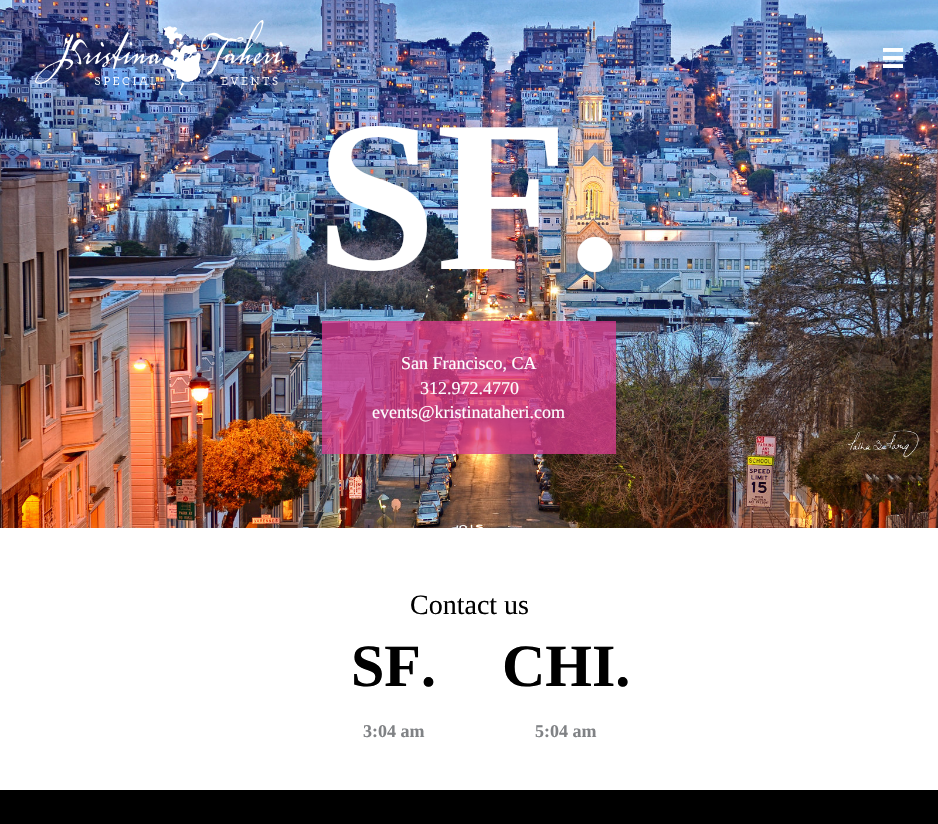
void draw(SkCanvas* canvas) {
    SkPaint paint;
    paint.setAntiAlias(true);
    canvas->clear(0xFFFFFFFF);
    canvas->drawImageRect(SkImages::DeferredFromEncodedData(SkData::MakeFromFileName("img3.png")), SkRect::MakeXYWH(0, 0, 938, 528), SkSamplingOptions());
    canvas->drawImageRect(SkImages::DeferredFromEncodedData(SkData::MakeFromFileName("img1.png")), SkRect::MakeXYWH(35, 20, 248, 75), SkSamplingOptions());
    canvas->drawImageRect(SkImages::DeferredFromEncodedData(SkData::MakeFromFileName("img2.png")), SkRect::MakeXYWH(883, 48, 20, 20), SkSamplingOptions());
    SkFont font1(fontMgr->matchFamilyStyle("Liberation Serif", SkFontStyle::Bold()), 216);
    font1.setSubpixel(true);
    paint.setColor(0xFFFFFFFF);
    canvas->drawString("SF.", 316, 269, font1, paint);
    paint.setColor(0xBFDC398F);
    canvas->drawRect(SkRect::MakeXYWH(322, 321, 294, 133), paint);
    SkFont font2(fontMgr->matchFamilyStyle("Liberation Serif", SkFontStyle::Normal()), 18);
    font2.setSubpixel(true);
    paint.setColor(0xFFFFFFFF);
    canvas->drawString("San Francisco, CA", 401, 369, font2, paint);
    canvas->drawString("312.972.4770", 420, 394, font2, paint);
    canvas->drawString("events@kristinataheri.com", 372, 418, font2, paint);
    SkFont font3(fontMgr->matchFamilyStyle("Liberation Serif", SkFontStyle::Normal()), 28);
    font3.setSubpixel(true);
    paint.setColor(0xFF000000);
    canvas->drawString("Contact us", 410, 614, font3, paint);
    SkFont font4(fontMgr->matchFamilyStyle("Liberation Serif", SkFontStyle::Bold()), 60);
    font4.setSubpixel(true);
    canvas->drawString("SF.", 351, 686, font4, paint);
    SkFont font5(fontMgr->matchFamilyStyle("Liberation Serif", SkFontStyle::Bold()), 18);
    font5.setSubpixel(true);
    paint.setColor(0xFF808285);
    canvas->drawString("3:04 am", 363, 737, font5, paint);
    paint.setColor(0xFF000000);
    canvas->drawString("CHI.", 502, 686, font4, paint);
    paint.setColor(0xFF808285);
    canvas->drawString("5:04 am", 535, 737, font5, paint);
    paint.setColor(0xFF000000);
    canvas->drawRect(SkRect::MakeXYWH(0, 790, 938, 34), paint);
}
